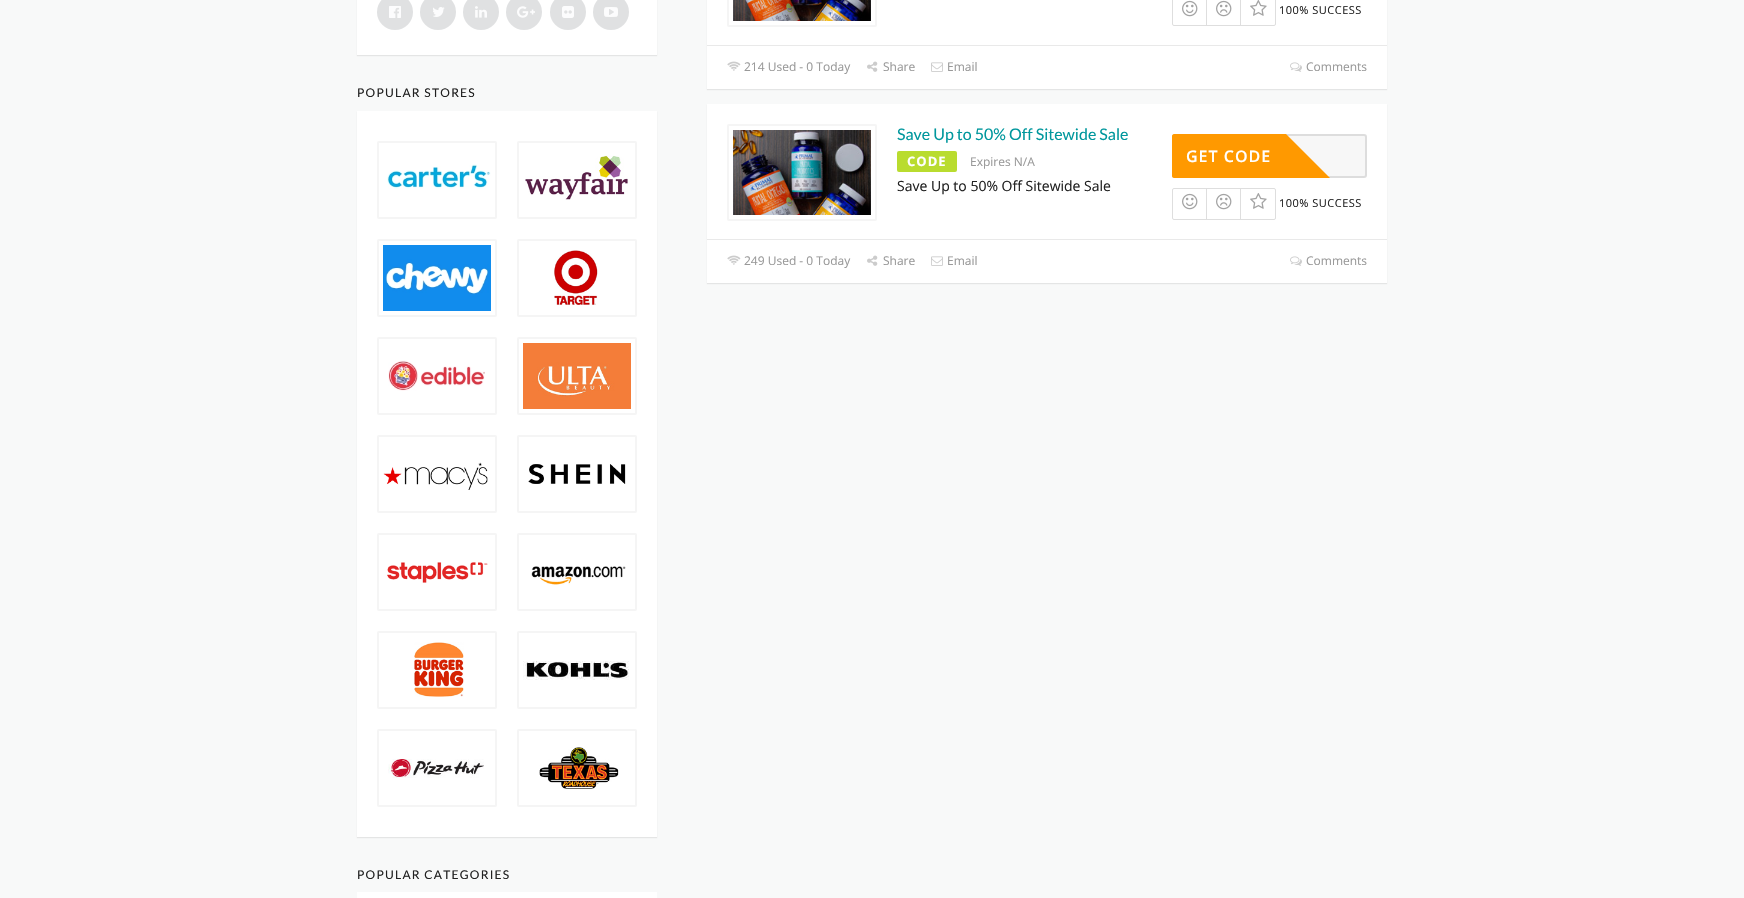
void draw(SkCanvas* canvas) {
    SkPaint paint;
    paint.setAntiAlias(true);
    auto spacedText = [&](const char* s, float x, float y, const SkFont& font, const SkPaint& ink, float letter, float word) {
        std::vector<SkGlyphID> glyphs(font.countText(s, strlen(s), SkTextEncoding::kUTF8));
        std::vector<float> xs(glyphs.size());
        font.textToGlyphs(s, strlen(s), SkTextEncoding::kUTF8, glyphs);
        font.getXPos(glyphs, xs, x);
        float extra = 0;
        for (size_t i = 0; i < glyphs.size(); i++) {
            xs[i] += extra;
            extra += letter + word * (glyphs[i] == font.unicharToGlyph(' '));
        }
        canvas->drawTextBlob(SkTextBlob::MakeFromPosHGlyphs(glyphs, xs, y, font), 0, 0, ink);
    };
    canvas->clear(0xFFF8F9F9);
    paint.setColor(0x14000000);
    paint.setMaskFilter(SkMaskFilter::MakeBlur(kNormal_SkBlurStyle, 0.5f));
    canvas->drawRect(SkRect::MakeXYWH(357, -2, 300, 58), paint);
    paint.setMaskFilter(nullptr);
    paint.setColor(0xFFFFFFFF);
    canvas->drawRect(SkRect::MakeXYWH(357, 0, 300, 55), paint);
    paint.setColor(0xFFE0E1E2);
    canvas->drawCircle(395, 12, 18, paint);
    canvas->drawImageRect(SkImages::DeferredFromEncodedData(SkData::MakeFromFileName("img1.png")), SkRect::MakeXYWH(389, 6, 12, 12), SkSamplingOptions());
    canvas->drawCircle(438, 12, 18, paint);
    canvas->drawImageRect(SkImages::DeferredFromEncodedData(SkData::MakeFromFileName("img2.png")), SkRect::MakeXYWH(433, 7, 12, 10), SkSamplingOptions());
    canvas->drawCircle(481, 12, 18, paint);
    canvas->drawImageRect(SkImages::DeferredFromEncodedData(SkData::MakeFromFileName("img3.png")), SkRect::MakeXYWH(475, 6, 12, 12), SkSamplingOptions());
    canvas->drawCircle(524, 12, 18, paint);
    canvas->drawImageRect(SkImages::DeferredFromEncodedData(SkData::MakeFromFileName("img4.png")), SkRect::MakeXYWH(517, 6, 18, 12), SkSamplingOptions());
    canvas->drawCircle(568, 12, 18, paint);
    canvas->drawImageRect(SkImages::DeferredFromEncodedData(SkData::MakeFromFileName("img5.png")), SkRect::MakeXYWH(562, 6, 12, 12), SkSamplingOptions());
    canvas->drawCircle(611, 12, 18, paint);
    canvas->drawImageRect(SkImages::DeferredFromEncodedData(SkData::MakeFromFileName("img6.png")), SkRect::MakeXYWH(604, 7, 14, 10), SkSamplingOptions());
    SkFont font1(fontMgr->matchFamilyStyle("Lato", SkFontStyle::Normal()), 12);
    font1.setSubpixel(true);
    paint.setColor(0xFF212121);
    spacedText("POPULAR STORES", 357, 97, font1, paint, 1.25f, 0);
    paint.setColor(0x14000000);
    paint.setMaskFilter(SkMaskFilter::MakeBlur(kNormal_SkBlurStyle, 0.5f));
    canvas->drawRect(SkRect::MakeXYWH(357, 112, 300, 726), paint);
    paint.setMaskFilter(nullptr);
    paint.setColor(0xFFFFFFFF);
    canvas->drawRect(SkRect::MakeXYWH(357, 111, 300, 726), paint);
    paint.setStyle(SkPaint::kStroke_Style);
    paint.setStrokeWidth(2);
    paint.setColor(0xFFF5F5F5);
    canvas->drawRoundRect(SkRect::MakeXYWH(378, 142, 118, 76), 1, 1, paint);
    canvas->drawImageRect(SkImages::DeferredFromEncodedData(SkData::MakeFromFileName("img7.png")), SkRect::MakeXYWH(387, 164, 104, 25), SkSamplingOptions());
    canvas->drawRoundRect(SkRect::MakeXYWH(518, 142, 118, 76), 1, 1, paint);
    canvas->drawImageRect(SkImages::DeferredFromEncodedData(SkData::MakeFromFileName("img8.png")), SkRect::MakeXYWH(525, 155, 103, 45), SkSamplingOptions());
    canvas->drawRoundRect(SkRect::MakeXYWH(378, 240, 118, 76), 1, 1, paint);
    canvas->drawImageRect(SkImages::DeferredFromEncodedData(SkData::MakeFromFileName("img9.png")), SkRect::MakeXYWH(383, 245, 108, 66), SkSamplingOptions());
    canvas->drawRoundRect(SkRect::MakeXYWH(518, 240, 118, 76), 1, 1, paint);
    canvas->drawImageRect(SkImages::DeferredFromEncodedData(SkData::MakeFromFileName("img10.png")), SkRect::MakeXYWH(554, 250, 44, 55), SkSamplingOptions());
    canvas->drawRoundRect(SkRect::MakeXYWH(378, 338, 118, 76), 1, 1, paint);
    canvas->drawImageRect(SkImages::DeferredFromEncodedData(SkData::MakeFromFileName("img11.png")), SkRect::MakeXYWH(388, 360, 97, 31), SkSamplingOptions());
    canvas->drawRoundRect(SkRect::MakeXYWH(518, 338, 118, 76), 1, 1, paint);
    canvas->drawImageRect(SkImages::DeferredFromEncodedData(SkData::MakeFromFileName("img12.png")), SkRect::MakeXYWH(523, 343, 108, 66), SkSamplingOptions());
    canvas->drawRoundRect(SkRect::MakeXYWH(378, 436, 118, 76), 1, 1, paint);
    canvas->drawImageRect(SkImages::DeferredFromEncodedData(SkData::MakeFromFileName("img13.png")), SkRect::MakeXYWH(383, 462, 105, 28), SkSamplingOptions());
    canvas->drawRoundRect(SkRect::MakeXYWH(518, 436, 118, 76), 1, 1, paint);
    canvas->drawImageRect(SkImages::DeferredFromEncodedData(SkData::MakeFromFileName("img14.png")), SkRect::MakeXYWH(528, 464, 98, 20), SkSamplingOptions());
    canvas->drawRoundRect(SkRect::MakeXYWH(378, 534, 118, 76), 1, 1, paint);
    canvas->drawImageRect(SkImages::DeferredFromEncodedData(SkData::MakeFromFileName("img15.png")), SkRect::MakeXYWH(387, 562, 101, 21), SkSamplingOptions());
    canvas->drawRoundRect(SkRect::MakeXYWH(518, 534, 118, 76), 1, 1, paint);
    canvas->drawImageRect(SkImages::DeferredFromEncodedData(SkData::MakeFromFileName("img16.png")), SkRect::MakeXYWH(531, 566, 95, 19), SkSamplingOptions());
    canvas->drawRoundRect(SkRect::MakeXYWH(378, 632, 118, 76), 1, 1, paint);
    canvas->drawImageRect(SkImages::DeferredFromEncodedData(SkData::MakeFromFileName("img17.png")), SkRect::MakeXYWH(414, 642, 50, 55), SkSamplingOptions());
    canvas->drawRoundRect(SkRect::MakeXYWH(518, 632, 118, 76), 1, 1, paint);
    canvas->drawImageRect(SkImages::DeferredFromEncodedData(SkData::MakeFromFileName("img18.png")), SkRect::MakeXYWH(523, 661, 106, 19), SkSamplingOptions());
    canvas->drawRoundRect(SkRect::MakeXYWH(378, 730, 118, 76), 1, 1, paint);
    canvas->drawImageRect(SkImages::DeferredFromEncodedData(SkData::MakeFromFileName("img19.png")), SkRect::MakeXYWH(388, 759, 96, 19), SkSamplingOptions());
    canvas->drawRoundRect(SkRect::MakeXYWH(518, 730, 118, 76), 1, 1, paint);
    canvas->drawImageRect(SkImages::DeferredFromEncodedData(SkData::MakeFromFileName("img20.png")), SkRect::MakeXYWH(539, 747, 80, 42), SkSamplingOptions());
    paint.setStyle(SkPaint::kFill_Style);
    paint.setColor(0xFF212121);
    spacedText("POPULAR CATEGORIES", 357, 879, font1, paint, 1.25f, 0);
    paint.setColor(0xFFFFFFFF);
    canvas->drawRect(SkRect::MakeXYWH(357, 892, 300, 6), paint);
    paint.setColor(0x14000000);
    paint.setMaskFilter(SkMaskFilter::MakeBlur(kNormal_SkBlurStyle, 0.5f));
    canvas->drawRect(SkRect::MakeXYWH(707, -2, 680, 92), paint);
    paint.setMaskFilter(nullptr);
    paint.setColor(0xFFFFFFFF);
    canvas->drawRect(SkRect::MakeXYWH(707, 0, 680, 89), paint);
    paint.setStyle(SkPaint::kStroke_Style);
    paint.setColor(0xFFF5F5F5);
    canvas->drawRoundRect(SkRect::MakeXYWH(728, -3, 148, 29), 1, 1, paint);
    canvas->drawImageRect(SkImages::DeferredFromEncodedData(SkData::MakeFromFileName("img21.png")), SkRect::MakeXYWH(733, 0, 138, 21), SkSamplingOptions());
    paint.setStrokeWidth(1);
    paint.setColor(0xFFDEDEDE);
    canvas->drawRoundRect(SkRect::MakeXYWH(1172.5f, -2.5f, 103, 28), 1.5f, 1.5f, paint);
    canvas->drawImageRect(SkImages::DeferredFromEncodedData(SkData::MakeFromFileName("img22.png")), SkRect::MakeXYWH(1182, 0, 16, 17), SkSamplingOptions());
    paint.setStyle(SkPaint::kFill_Style);
    canvas->drawRect(SkRect::MakeXYWH(1206, 0, 1, 25), paint);
    canvas->drawImageRect(SkImages::DeferredFromEncodedData(SkData::MakeFromFileName("img23.png")), SkRect::MakeXYWH(1216, 0, 16, 17), SkSamplingOptions());
    canvas->drawRect(SkRect::MakeXYWH(1240, 0, 1, 25), paint);
    canvas->drawImageRect(SkImages::DeferredFromEncodedData(SkData::MakeFromFileName("img24.png")), SkRect::MakeXYWH(1250, 0, 17, 16), SkSamplingOptions());
    SkFont font2(fontMgr->matchFamilyStyle("Open Sans", SkFontStyle::Normal()), 11);
    font2.setSubpixel(true);
    paint.setColor(0xFF212121);
    spacedText("100% SUCCESS", 1279, 14, font2, paint, 0.5f, 0);
    paint.setColor(0xFFE9E9E9);
    canvas->drawRect(SkRect::MakeXYWH(707, 45, 680, 1), paint);
    canvas->drawImageRect(SkImages::DeferredFromEncodedData(SkData::MakeFromFileName("img25.png")), SkRect::MakeXYWH(727, 61, 14, 10), SkSamplingOptions());
    SkFont font3(fontMgr->matchFamilyStyle("Open Sans", SkFontStyle::Normal()), 12);
    font3.setSubpixel(true);
    paint.setColor(0xFF999999);
    canvas->drawString("214 Used - 0 Today", 744, 71, font3, paint);
    canvas->drawImageRect(SkImages::DeferredFromEncodedData(SkData::MakeFromFileName("img26.png")), SkRect::MakeXYWH(867, 61, 11, 11), SkSamplingOptions());
    canvas->drawString("Share", 883, 71, font3, paint);
    canvas->drawImageRect(SkImages::DeferredFromEncodedData(SkData::MakeFromFileName("img27.png")), SkRect::MakeXYWH(931, 62, 12, 10), SkSamplingOptions());
    canvas->drawString("Email", 947, 71, font3, paint);
    canvas->drawImageRect(SkImages::DeferredFromEncodedData(SkData::MakeFromFileName("img28.png")), SkRect::MakeXYWH(1290, 62, 12, 10), SkSamplingOptions());
    canvas->drawString("Comments", 1306, 71, font3, paint);
    paint.setColor(0x14000000);
    paint.setMaskFilter(SkMaskFilter::MakeBlur(kNormal_SkBlurStyle, 0.5f));
    canvas->drawRect(SkRect::MakeXYWH(707, 105, 680, 179), paint);
    paint.setMaskFilter(nullptr);
    paint.setColor(0xFFFFFFFF);
    canvas->drawRect(SkRect::MakeXYWH(707, 104, 680, 179), paint);
    paint.setStyle(SkPaint::kStroke_Style);
    paint.setStrokeWidth(2);
    paint.setColor(0xFFF5F5F5);
    canvas->drawRoundRect(SkRect::MakeXYWH(728, 125, 148, 95), 1, 1, paint);
    canvas->drawImageRect(SkImages::DeferredFromEncodedData(SkData::MakeFromFileName("img29.png")), SkRect::MakeXYWH(733, 130, 138, 85), SkSamplingOptions());
    SkFont font4(fontMgr->matchFamilyStyle("Lato", SkFontStyle::Normal()), 16);
    font4.setSubpixel(true);
    paint.setStyle(SkPaint::kFill_Style);
    paint.setColor(0xFF00979D);
    canvas->drawString("Save Up to 50% Off Sitewide Sale", 897, 140, font4, paint);
    paint.setColor(0xFFB9DC2F);
    canvas->drawRoundRect(SkRect::MakeXYWH(897, 151, 60, 21), 2, 2, paint);
    SkFont font5(fontMgr->matchFamilyStyle("Open Sans", SkFontStyle::Bold()), 13);
    font5.setSubpixel(true);
    paint.setColor(0xFFFFFFFF);
    spacedText("CODE", 907, 166, font5, paint, 1, 0);
    paint.setColor(0xFF999999);
    canvas->drawString("Expires N/A", 970, 166, font3, paint);
    SkFont font6(fontMgr->matchFamilyStyle("Open Sans", SkFontStyle::Normal()), 14);
    font6.setSubpixel(true);
    paint.setColor(0xFF212121);
    canvas->drawString("Save Up to 50% Off Sitewide Sale", 897, 191, font6, paint);
    paint.setColor(0xFFF7F7F7);
    canvas->drawRoundRect(SkRect::MakeXYWH(1173, 135, 193, 42), 2, 2, paint);
    paint.setStyle(SkPaint::kStroke_Style);
    paint.setColor(0xFFDDDDDD);
    canvas->drawRoundRect(SkRect::MakeXYWH(1173, 135, 193, 42), 2, 2, paint);
    paint.setStyle(SkPaint::kFill_Style);
    paint.setColor(0xFFFF9900);
    canvas->drawPath(SkPathBuilder().moveTo(1174, 134).lineTo(1286, 134).lineTo(1286, 178).lineTo(1174, 178).cubicTo(1173, 178, 1172, 177, 1172, 176).lineTo(1172, 136).cubicTo(1172, 135, 1173, 134, 1174, 134).close().detach(), paint);
    SkFont font7(fontMgr->matchFamilyStyle("Open Sans", SkFontStyle(600, SkFontStyle::kNormal_Width, SkFontStyle::kUpright_Slant)), 16);
    font7.setSubpixel(true);
    paint.setColor(0xFFFFFFFF);
    spacedText("GET CODE", 1186, 162, font7, paint, 1, 0);
    paint.setColor(0xFFFF9900);
    canvas->drawPath(SkPathBuilder().moveTo(1286, 178).lineTo(1286, 134).lineTo(1330, 178).close().detach(), paint);
    paint.setStyle(SkPaint::kStroke_Style);
    paint.setStrokeWidth(1);
    paint.setColor(0xFFDEDEDE);
    canvas->drawRoundRect(SkRect::MakeXYWH(1172.5f, 188.5f, 103, 31), 1.5f, 1.5f, paint);
    canvas->drawImageRect(SkImages::DeferredFromEncodedData(SkData::MakeFromFileName("img22.png")), SkRect::MakeXYWH(1182, 193, 16, 17), SkSamplingOptions());
    paint.setStyle(SkPaint::kFill_Style);
    canvas->drawRect(SkRect::MakeXYWH(1206, 189, 1, 30), paint);
    canvas->drawImageRect(SkImages::DeferredFromEncodedData(SkData::MakeFromFileName("img23.png")), SkRect::MakeXYWH(1216, 193, 16, 17), SkSamplingOptions());
    canvas->drawRect(SkRect::MakeXYWH(1240, 189, 1, 30), paint);
    canvas->drawImageRect(SkImages::DeferredFromEncodedData(SkData::MakeFromFileName("img24.png")), SkRect::MakeXYWH(1250, 193, 17, 16), SkSamplingOptions());
    paint.setColor(0xFF212121);
    spacedText("100% SUCCESS", 1279, 207, font2, paint, 0.5f, 0);
    paint.setColor(0xFFE9E9E9);
    canvas->drawRect(SkRect::MakeXYWH(707, 239, 680, 1), paint);
    canvas->drawImageRect(SkImages::DeferredFromEncodedData(SkData::MakeFromFileName("img25.png")), SkRect::MakeXYWH(727, 255, 14, 10), SkSamplingOptions());
    paint.setColor(0xFF999999);
    canvas->drawString("249 Used - 0 Today", 744, 265, font3, paint);
    canvas->drawImageRect(SkImages::DeferredFromEncodedData(SkData::MakeFromFileName("img26.png")), SkRect::MakeXYWH(867, 255, 11, 11), SkSamplingOptions());
    canvas->drawString("Share", 883, 265, font3, paint);
    canvas->drawImageRect(SkImages::DeferredFromEncodedData(SkData::MakeFromFileName("img27.png")), SkRect::MakeXYWH(931, 256, 12, 10), SkSamplingOptions());
    canvas->drawString("Email", 947, 265, font3, paint);
    canvas->drawImageRect(SkImages::DeferredFromEncodedData(SkData::MakeFromFileName("img28.png")), SkRect::MakeXYWH(1290, 256, 12, 10), SkSamplingOptions());
    canvas->drawString("Comments", 1306, 265, font3, paint);
}
